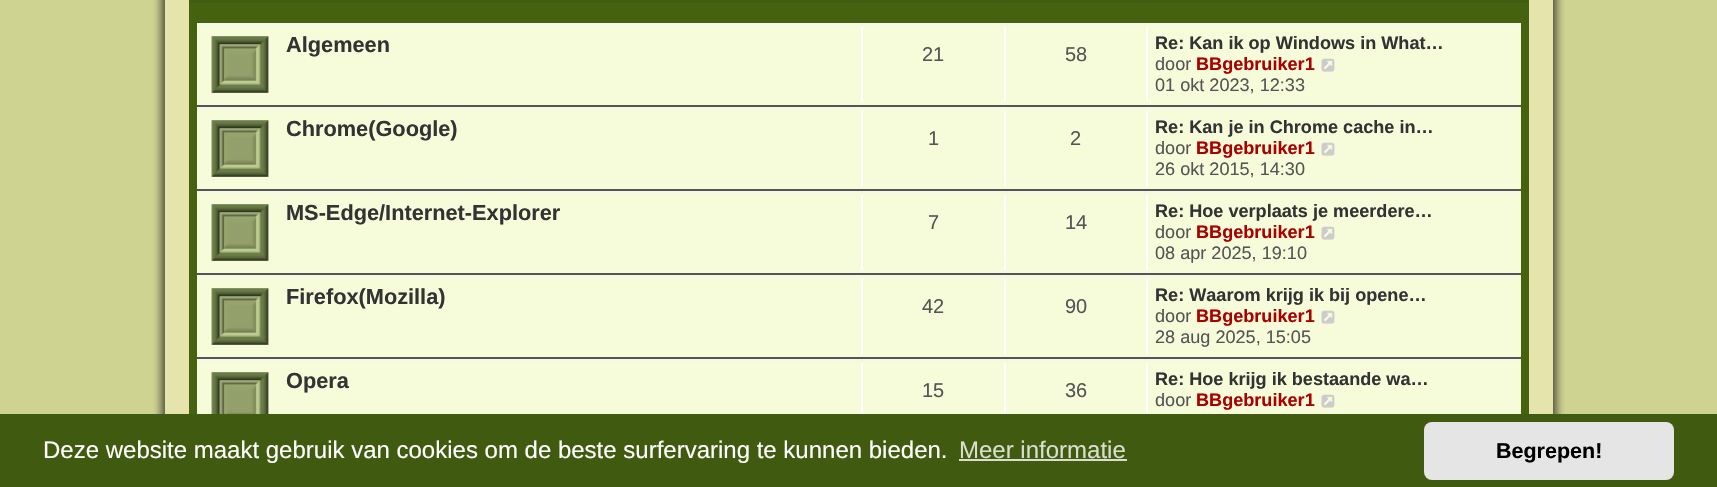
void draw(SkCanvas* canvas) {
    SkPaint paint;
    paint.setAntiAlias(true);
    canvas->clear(0xFFCED392);
    paint.setColor(0xB3020202);
    paint.setMaskFilter(SkMaskFilter::MakeBlur(kNormal_SkBlurStyle, 4.5f));
    canvas->drawRect(SkRect::MakeXYWH(162, -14, 1394, 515), paint);
    paint.setMaskFilter(nullptr);
    paint.setColor(0xFFE5E4AC);
    canvas->drawRect(SkRect::MakeXYWH(165, 0, 1388, 414), paint);
    paint.setColor(0xFF456210);
    canvas->drawRect(SkRect::MakeXYWH(189, 0, 1340, 414), paint);
    paint.setColor(0xFF415D10);
    canvas->drawRect(SkRect::MakeXYWH(189, 0, 1339, 3), paint);
    paint.setColor(0xFFF6FBDA);
    canvas->drawRect(SkRect::MakeXYWH(197, 25, 1324, 389), paint);
    paint.setColor(0xFFF3F7EA);
    canvas->drawRect(SkRect::MakeXYWH(197, 23, 1324, 2), paint);
    paint.setColor(0xFF555555);
    canvas->drawRect(SkRect::MakeXYWH(197, 105, 1324, 2), paint);
    canvas->drawImageRect(SkImages::DeferredFromEncodedData(SkData::MakeFromFileName("img1.png")), SkRect::MakeXYWH(211, 36, 58, 57), SkSamplingOptions());
    SkFont font1(fontMgr->matchFamilyStyle("Liberation Sans", SkFontStyle::Bold()), 21.75f);
    font1.setSubpixel(true);
    paint.setColor(0xFF333333);
    canvas->drawString("Algemeen", 286, 52, font1, paint);
    paint.setColor(0xFFFFFFFF);
    canvas->drawRect(SkRect::MakeXYWH(861, 27, 2, 75), paint);
    SkFont font2(fontMgr->matchFamilyStyle("Liberation Sans", SkFontStyle::Normal()), 20);
    font2.setSubpixel(true);
    paint.setColor(0xFF555555);
    canvas->drawString("21", 922, 61, font2, paint);
    paint.setColor(0xFFFFFFFF);
    canvas->drawRect(SkRect::MakeXYWH(1004, 27, 2, 75), paint);
    paint.setColor(0xFF555555);
    canvas->drawString("58", 1065, 61, font2, paint);
    paint.setColor(0xFFFFFFFF);
    canvas->drawRect(SkRect::MakeXYWH(1146, 27, 2, 75), paint);
    SkFont font3(fontMgr->matchFamilyStyle("Liberation Sans", SkFontStyle::Bold()), 18.1f);
    font3.setSubpixel(true);
    paint.setColor(0xFF333333);
    canvas->drawString("Re: Kan ik op Windows in What…", 1155, 49, font3, paint);
    SkFont font4(fontMgr->matchFamilyStyle("Liberation Sans", SkFontStyle::Normal()), 18.1f);
    font4.setSubpixel(true);
    paint.setColor(0xFF555555);
    canvas->drawString("door", 1155, 70, font4, paint);
    paint.setColor(0xFFAA0000);
    canvas->drawString("BBgebruiker1", 1196, 70, font3, paint);
    canvas->drawImageRect(SkImages::DeferredFromEncodedData(SkData::MakeFromFileName("img2.png")), SkRect::MakeXYWH(1321, 58, 14, 14), SkSamplingOptions());
    paint.setColor(0xFF555555);
    canvas->drawString("01 okt 2023, 12:33", 1155, 91, font4, paint);
    paint.setColor(0xFFF3F7EA);
    canvas->drawRect(SkRect::MakeXYWH(197, 107, 1324, 2), paint);
    paint.setColor(0xFF555555);
    canvas->drawRect(SkRect::MakeXYWH(197, 189, 1324, 2), paint);
    canvas->drawImageRect(SkImages::DeferredFromEncodedData(SkData::MakeFromFileName("img1.png")), SkRect::MakeXYWH(211, 120, 58, 57), SkSamplingOptions());
    paint.setColor(0xFF333333);
    canvas->drawString("Chrome(Google)", 286, 136, font1, paint);
    paint.setColor(0xFFFFFFFF);
    canvas->drawRect(SkRect::MakeXYWH(861, 111, 2, 75), paint);
    paint.setColor(0xFF555555);
    canvas->drawString("1", 928, 145, font2, paint);
    paint.setColor(0xFFFFFFFF);
    canvas->drawRect(SkRect::MakeXYWH(1004, 111, 2, 75), paint);
    paint.setColor(0xFF555555);
    canvas->drawString("2", 1070, 145, font2, paint);
    paint.setColor(0xFFFFFFFF);
    canvas->drawRect(SkRect::MakeXYWH(1146, 111, 2, 75), paint);
    paint.setColor(0xFF333333);
    canvas->drawString("Re: Kan je in Chrome cache in…", 1155, 133, font3, paint);
    paint.setColor(0xFF555555);
    canvas->drawString("door", 1155, 154, font4, paint);
    paint.setColor(0xFFAA0000);
    canvas->drawString("BBgebruiker1", 1196, 154, font3, paint);
    canvas->drawImageRect(SkImages::DeferredFromEncodedData(SkData::MakeFromFileName("img2.png")), SkRect::MakeXYWH(1321, 142, 14, 14), SkSamplingOptions());
    paint.setColor(0xFF555555);
    canvas->drawString("26 okt 2015, 14:30", 1155, 175, font4, paint);
    paint.setColor(0xFFF3F7EA);
    canvas->drawRect(SkRect::MakeXYWH(197, 191, 1324, 2), paint);
    paint.setColor(0xFF555555);
    canvas->drawRect(SkRect::MakeXYWH(197, 273, 1324, 2), paint);
    canvas->drawImageRect(SkImages::DeferredFromEncodedData(SkData::MakeFromFileName("img1.png")), SkRect::MakeXYWH(211, 204, 58, 57), SkSamplingOptions());
    paint.setColor(0xFF333333);
    canvas->drawString("MS-Edge/Internet-Explorer", 286, 220, font1, paint);
    paint.setColor(0xFFFFFFFF);
    canvas->drawRect(SkRect::MakeXYWH(861, 195, 2, 75), paint);
    paint.setColor(0xFF555555);
    canvas->drawString("7", 928, 229, font2, paint);
    paint.setColor(0xFFFFFFFF);
    canvas->drawRect(SkRect::MakeXYWH(1004, 195, 2, 75), paint);
    paint.setColor(0xFF555555);
    canvas->drawString("14", 1065, 229, font2, paint);
    paint.setColor(0xFFFFFFFF);
    canvas->drawRect(SkRect::MakeXYWH(1146, 195, 2, 75), paint);
    paint.setColor(0xFF333333);
    canvas->drawString("Re: Hoe verplaats je meerdere…", 1155, 217, font3, paint);
    paint.setColor(0xFF555555);
    canvas->drawString("door", 1155, 238, font4, paint);
    paint.setColor(0xFFAA0000);
    canvas->drawString("BBgebruiker1", 1196, 238, font3, paint);
    canvas->drawImageRect(SkImages::DeferredFromEncodedData(SkData::MakeFromFileName("img2.png")), SkRect::MakeXYWH(1321, 226, 14, 14), SkSamplingOptions());
    paint.setColor(0xFF555555);
    canvas->drawString("08 apr 2025, 19:10", 1155, 259, font4, paint);
    paint.setColor(0xFFF3F7EA);
    canvas->drawRect(SkRect::MakeXYWH(197, 275, 1324, 2), paint);
    paint.setColor(0xFF555555);
    canvas->drawRect(SkRect::MakeXYWH(197, 357, 1324, 2), paint);
    canvas->drawImageRect(SkImages::DeferredFromEncodedData(SkData::MakeFromFileName("img1.png")), SkRect::MakeXYWH(211, 288, 58, 57), SkSamplingOptions());
    paint.setColor(0xFF333333);
    canvas->drawString("Firefox(Mozilla)", 286, 304, font1, paint);
    paint.setColor(0xFFFFFFFF);
    canvas->drawRect(SkRect::MakeXYWH(861, 279, 2, 75), paint);
    paint.setColor(0xFF555555);
    canvas->drawString("42", 922, 313, font2, paint);
    paint.setColor(0xFFFFFFFF);
    canvas->drawRect(SkRect::MakeXYWH(1004, 279, 2, 75), paint);
    paint.setColor(0xFF555555);
    canvas->drawString("90", 1065, 313, font2, paint);
    paint.setColor(0xFFFFFFFF);
    canvas->drawRect(SkRect::MakeXYWH(1146, 279, 2, 75), paint);
    paint.setColor(0xFF333333);
    canvas->drawString("Re: Waarom krijg ik bij opene…", 1155, 301, font3, paint);
    paint.setColor(0xFF555555);
    canvas->drawString("door", 1155, 322, font4, paint);
    paint.setColor(0xFFAA0000);
    canvas->drawString("BBgebruiker1", 1196, 322, font3, paint);
    canvas->drawImageRect(SkImages::DeferredFromEncodedData(SkData::MakeFromFileName("img2.png")), SkRect::MakeXYWH(1321, 310, 14, 14), SkSamplingOptions());
    paint.setColor(0xFF555555);
    canvas->drawString("28 aug 2025, 15:05", 1155, 343, font4, paint);
    paint.setColor(0xFFF3F7EA);
    canvas->drawRect(SkRect::MakeXYWH(197, 359, 1324, 2), paint);
    canvas->drawImageRect(SkImages::DeferredFromEncodedData(SkData::MakeFromFileName("img3.png")), SkRect::MakeXYWH(211, 372, 58, 42), SkSamplingOptions());
    paint.setColor(0xFF333333);
    canvas->drawString("Opera", 286, 388, font1, paint);
    paint.setColor(0xFFFFFFFF);
    canvas->drawRect(SkRect::MakeXYWH(861, 363, 2, 51), paint);
    paint.setColor(0xFF555555);
    canvas->drawString("15", 922, 397, font2, paint);
    paint.setColor(0xFFFFFFFF);
    canvas->drawRect(SkRect::MakeXYWH(1004, 363, 2, 51), paint);
    paint.setColor(0xFF555555);
    canvas->drawString("36", 1065, 397, font2, paint);
    paint.setColor(0xFFFFFFFF);
    canvas->drawRect(SkRect::MakeXYWH(1146, 363, 2, 51), paint);
    paint.setColor(0xFF333333);
    canvas->drawString("Re: Hoe krijg ik bestaande wa…", 1155, 385, font3, paint);
    paint.setColor(0xFF555555);
    canvas->drawString("door", 1155, 406, font4, paint);
    paint.setColor(0xFFAA0000);
    canvas->drawString("BBgebruiker1", 1196, 406, font3, paint);
    canvas->drawImageRect(SkImages::DeferredFromEncodedData(SkData::MakeFromFileName("img2.png")), SkRect::MakeXYWH(1321, 394, 14, 14), SkSamplingOptions());
    paint.setColor(0xFF405A10);
    canvas->drawRect(SkRect::MakeXYWH(0, 414, 1717, 73), paint);
    SkFont font5(fontMgr->matchFamilyStyle("Liberation Sans", SkFontStyle::Normal()), 24);
    font5.setSubpixel(true);
    paint.setColor(0xFFFFFFFF);
    canvas->drawString("Deze website maakt gebruik van cookies om de beste surfervaring te kunnen bieden.", 43, 458, font5, paint);
    paint.setColor(0xFFD9DECF);
    canvas->drawString("Meer informatie", 959, 458, font5, paint);
    canvas->drawRect(SkRect::MakeXYWH(959, 459, 168, 2), paint);
    paint.setColor(0xFFE5E5E5);
    canvas->drawRoundRect(SkRect::MakeXYWH(1424, 422, 250, 58), 8, 8, paint);
    SkFont font6(fontMgr->matchFamilyStyle("Liberation Sans", SkFontStyle::Bold()), 21.5f);
    font6.setSubpixel(true);
    paint.setColor(0xFF000000);
    canvas->drawString("Begrepen!", 1496, 458, font6, paint);
}
